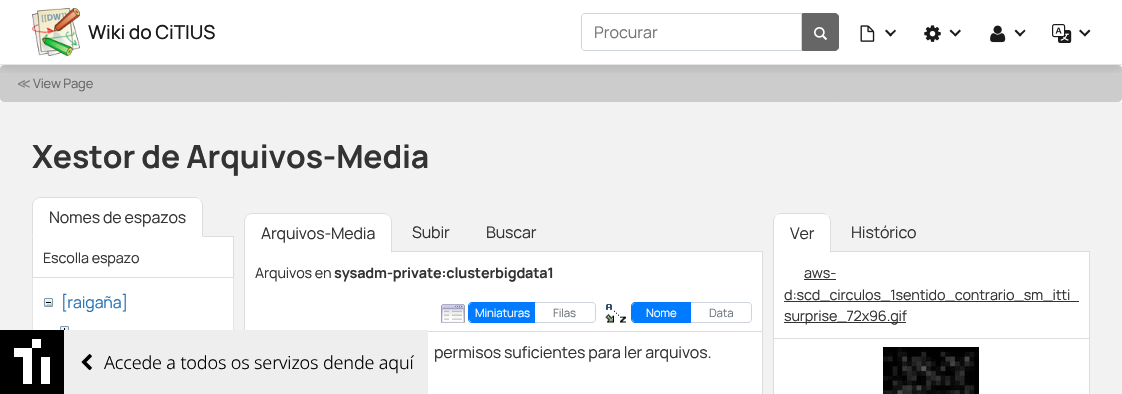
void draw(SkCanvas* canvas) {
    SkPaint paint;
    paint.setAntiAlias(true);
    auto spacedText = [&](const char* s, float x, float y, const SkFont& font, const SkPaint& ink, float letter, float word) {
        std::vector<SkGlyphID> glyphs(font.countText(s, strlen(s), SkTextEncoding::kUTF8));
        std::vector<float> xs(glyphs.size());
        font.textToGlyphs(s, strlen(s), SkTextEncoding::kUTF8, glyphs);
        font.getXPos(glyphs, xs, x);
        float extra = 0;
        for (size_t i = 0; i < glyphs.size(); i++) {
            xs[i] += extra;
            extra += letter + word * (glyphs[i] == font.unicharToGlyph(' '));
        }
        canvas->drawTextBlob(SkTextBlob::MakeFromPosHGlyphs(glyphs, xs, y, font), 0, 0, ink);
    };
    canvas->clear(0xFFFFFFFF);
    paint.setColor(0xFFCCCCCC);
    canvas->drawRoundRect(SkRect::MakeXYWH(0.5f, 65.5f, 1121, 36), 3.5f, 3.5f, paint);
    paint.setStyle(SkPaint::kStroke_Style);
    paint.setStrokeWidth(1);
    canvas->drawRoundRect(SkRect::MakeXYWH(0.5f, 65.5f, 1121, 36), 3.5f, 3.5f, paint);
    canvas->save();
    canvas->clipRect(SkRect::MakeXYWH(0, 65, 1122, 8));
    paint.setStyle(SkPaint::kFill_Style);
    paint.setColor(0x1A000000);
    paint.setMaskFilter(SkMaskFilter::MakeBlur(kNormal_SkBlurStyle, 5));
    canvas->drawRect(SkRect::MakeXYWH(0, 4, 1122, 65), paint);
    paint.setMaskFilter(nullptr);
    canvas->restore();
    paint.setColor(0xFFE5E5E5);
    canvas->drawRect(SkRect::MakeXYWH(0, 64, 1122, 1), paint);
    canvas->drawImageRect(SkImages::DeferredFromEncodedData(SkData::MakeFromFileName("img1.png")), SkRect::MakeXYWH(32, 8, 48, 48), SkSamplingOptions());
    SkFont font1(fontMgr->matchFamilyStyle("Manrope", SkFontStyle(500, SkFontStyle::kNormal_Width, SkFontStyle::kUpright_Slant)), 19.25f);
    font1.setSubpixel(true);
    paint.setColor(0xFF1A1A1A);
    spacedText("Wiki do CiTIUS", 88, 39, font1, paint, -0.15f, 0);
    paint.setStyle(SkPaint::kStroke_Style);
    paint.setColor(0xFFCED4DA);
    canvas->drawPath(SkPathBuilder().moveTo(585, 13.5f).lineTo(801.5f, 13.5f).lineTo(801.5f, 50.5f).lineTo(585, 50.5f).cubicTo(583, 50.5f, 581.5f, 49, 581.5f, 47).lineTo(581.5f, 17).cubicTo(581.5f, 15, 583, 13.5f, 585, 13.5f).close().detach(), paint);
    SkFont font2(fontMgr->matchFamilyStyle("Manrope", SkFontStyle::Normal()), 16);
    font2.setSubpixel(true);
    paint.setStyle(SkPaint::kFill_Style);
    paint.setColor(0xFF757575);
    canvas->drawString("Procurar", 594, 38, font2, paint);
    paint.setColor(0xFF666666);
    canvas->drawPath(SkPathBuilder().moveTo(802.5f, 13.5f).lineTo(835, 13.5f).cubicTo(837, 13.5f, 838.5f, 15, 838.5f, 17).lineTo(838.5f, 47).cubicTo(838.5f, 49, 837, 50.5f, 835, 50.5f).lineTo(802.5f, 50.5f).close().detach(), paint);
    paint.setStyle(SkPaint::kStroke_Style);
    canvas->drawPath(SkPathBuilder().moveTo(802.5f, 13.5f).lineTo(835, 13.5f).cubicTo(837, 13.5f, 838.5f, 15, 838.5f, 17).lineTo(838.5f, 47).cubicTo(838.5f, 49, 837, 50.5f, 835, 50.5f).lineTo(802.5f, 50.5f).close().detach(), paint);
    canvas->drawImageRect(SkImages::DeferredFromEncodedData(SkData::MakeFromFileName("img2.png")), SkRect::MakeXYWH(814, 27, 14, 14), SkSamplingOptions());
    canvas->drawImageRect(SkImages::DeferredFromEncodedData(SkData::MakeFromFileName("img3.png")), SkRect::MakeXYWH(860, 25, 15, 17), SkSamplingOptions());
    paint.setStyle(SkPaint::kFill_Style);
    paint.setColor(0xFF1A1A1A);
    canvas->drawPath(SkPathBuilder().moveTo(889, 35).lineTo(895, 29.5f).lineTo(896, 31).lineTo(890.5f, 36.5f).close().detach(), paint);
    canvas->drawPath(SkPathBuilder().moveTo(885, 31).lineTo(886.5f, 29.5f).lineTo(892, 35).lineTo(890.5f, 36.5f).close().detach(), paint);
    canvas->drawImageRect(SkImages::DeferredFromEncodedData(SkData::MakeFromFileName("img4.png")), SkRect::MakeXYWH(924, 25, 17, 17), SkSamplingOptions());
    canvas->drawPath(SkPathBuilder().moveTo(954, 35).lineTo(959.5f, 29.5f).lineTo(961, 31).lineTo(955.5f, 36.5f).close().detach(), paint);
    canvas->drawPath(SkPathBuilder().moveTo(949.5f, 31).lineTo(951, 29.5f).lineTo(956.5f, 35).lineTo(955.5f, 36.5f).close().detach(), paint);
    canvas->drawImageRect(SkImages::DeferredFromEncodedData(SkData::MakeFromFileName("img5.png")), SkRect::MakeXYWH(990, 25, 16, 18), SkSamplingOptions());
    canvas->drawPath(SkPathBuilder().moveTo(1018.5f, 35).lineTo(1024.5f, 29.5f).lineTo(1025.5f, 31).lineTo(1020, 36.5f).close().detach(), paint);
    canvas->drawPath(SkPathBuilder().moveTo(1014.5f, 31).lineTo(1016, 29.5f).lineTo(1021.5f, 35).lineTo(1020, 36.5f).close().detach(), paint);
    canvas->drawImageRect(SkImages::DeferredFromEncodedData(SkData::MakeFromFileName("img6.png")), SkRect::MakeXYWH(1052, 24, 20, 19), SkSamplingOptions());
    canvas->drawPath(SkPathBuilder().moveTo(1083.5f, 35).lineTo(1089, 29.5f).lineTo(1090.5f, 31).lineTo(1085, 36.5f).close().detach(), paint);
    canvas->drawPath(SkPathBuilder().moveTo(1079, 31).lineTo(1080.5f, 29.5f).lineTo(1086, 35).lineTo(1085, 36.5f).close().detach(), paint);
    SkFont font3(fontMgr->matchFamilyStyle("DejaVu Sans", SkFontStyle::Normal()), 13);
    font3.setSubpixel(true);
    paint.setColor(0xFF808080);
    spacedText("≪", 17, 88, font3, paint, -0.15f, 0);
    SkFont font4(fontMgr->matchFamilyStyle("Manrope", SkFontStyle::Normal()), 13);
    font4.setSubpixel(true);
    paint.setColor(0xFF666666);
    spacedText("View Page", 33, 88, font4, paint, -0.15f, 0);
    paint.setColor(0xFFF2F2F2);
    canvas->drawRect(SkRect::MakeXYWH(0, 102, 1122, 292), paint);
    SkFont font5(fontMgr->matchFamilyStyle("Manrope", SkFontStyle::Bold()), 32);
    font5.setSubpixel(true);
    paint.setColor(0xFF333333);
    spacedText("Xestor de Arquivos-Media", 32, 168, font5, paint, -0.15f, 0);
    paint.setColor(0xFFFFFFFF);
    canvas->drawRect(SkRect::MakeXYWH(32.5f, 236.5f, 201, 41), paint);
    paint.setStyle(SkPaint::kStroke_Style);
    paint.setColor(0xFFDDDDDD);
    canvas->drawRect(SkRect::MakeXYWH(32.5f, 236.5f, 201, 41), paint);
    paint.setStyle(SkPaint::kFill_Style);
    paint.setColor(0xFFFFFFFF);
    canvas->drawPath(SkPathBuilder().moveTo(40, 197).lineTo(195, 197).cubicTo(199.5f, 197, 203, 200.5f, 203, 205).lineTo(203, 237).lineTo(32, 237).lineTo(32, 205).cubicTo(32, 200.5f, 35.5f, 197, 40, 197).close().detach(), paint);
    paint.setColor(0xFFDDDDDD);
    canvas->drawPath(SkPathBuilder().moveTo(40, 197).cubicTo(38, 197, 36, 198, 34, 200).lineTo(35, 200).lineTo(39, 198).lineTo(196, 198).cubicTo(197, 198, 199, 199, 200, 200).cubicTo(199, 198, 197, 197, 195, 197).close().detach(), paint);
    canvas->drawPath(SkPathBuilder().moveTo(203, 237).lineTo(203, 205).cubicTo(203, 203, 202, 201, 200.5f, 199.5f).lineTo(200, 200).cubicTo(201, 201, 202, 203, 202, 205).lineTo(202, 236).close().detach(), paint);
    paint.setColor(0xFFFFFFFF);
    canvas->drawPath(SkPathBuilder().moveTo(203, 237).lineTo(202, 236).lineTo(33, 236).lineTo(32, 237).close().detach(), paint);
    paint.setColor(0xFFDDDDDD);
    canvas->drawPath(SkPathBuilder().moveTo(32, 237).lineTo(33, 236).lineTo(33, 205).cubicTo(33, 203, 34, 201, 35, 200).lineTo(34.5f, 199.5f).cubicTo(33, 201, 32, 203, 32, 205).close().detach(), paint);
    paint.setColor(0xFF333333);
    spacedText("Nomes de espazos", 49, 223, font2, paint, -0.15f, 0);
    SkFont font6(fontMgr->matchFamilyStyle("Manrope", SkFontStyle::Normal()), 14.4f);
    font6.setSubpixel(true);
    spacedText("Escolla espazo", 43, 263, font6, paint, -0.15f, 0);
    paint.setColor(0xFFFFFFFF);
    canvas->drawRect(SkRect::MakeXYWH(33, 278, 200, 52), paint);
    paint.setColor(0xFFE5E5E5);
    canvas->drawRect(SkRect::MakeXYWH(233, 278, 1, 52), paint);
    canvas->drawRect(SkRect::MakeXYWH(32, 278, 1, 52), paint);
    canvas->drawImageRect(SkImages::DeferredFromEncodedData(SkData::MakeFromFileName("img7.png")), SkRect::MakeXYWH(44, 298, 9, 9), SkSamplingOptions());
    paint.setColor(0xFF2B73B7);
    spacedText("[raigaña]", 61, 308, font2, paint, -0.15f, 0);
    canvas->drawImageRect(SkImages::DeferredFromEncodedData(SkData::MakeFromFileName("img8.png")), SkRect::MakeXYWH(60, 326, 9, 4), SkSamplingOptions());
    paint.setColor(0xFFFFFFFF);
    canvas->drawRect(SkRect::MakeXYWH(244.5f, 251.5f, 518, 80), paint);
    paint.setStyle(SkPaint::kStroke_Style);
    paint.setColor(0xFFDDDDDD);
    canvas->drawRect(SkRect::MakeXYWH(244.5f, 251.5f, 518, 80), paint);
    paint.setStyle(SkPaint::kFill_Style);
    paint.setColor(0xFFFFFFFF);
    canvas->drawPath(SkPathBuilder().moveTo(252, 213).lineTo(384, 213).cubicTo(388.5f, 213, 392, 216.5f, 392, 221).lineTo(392, 252).lineTo(244, 252).lineTo(244, 221).cubicTo(244, 216.5f, 247.5f, 213, 252, 213).close().detach(), paint);
    paint.setColor(0xFFDDDDDD);
    canvas->drawPath(SkPathBuilder().moveTo(252, 213).cubicTo(250, 213, 248, 214, 246, 216).lineTo(247, 216).cubicTo(248, 215, 250, 214, 252, 214).lineTo(384, 214).cubicTo(386, 214, 388, 215, 389, 216).lineTo(390, 216).cubicTo(388, 214, 386, 213, 384, 213).close().detach(), paint);
    canvas->drawPath(SkPathBuilder().moveTo(392, 253).lineTo(392, 221).cubicTo(392, 219, 391, 217, 389.5f, 215.5f).lineTo(389, 216).cubicTo(390, 217, 391, 219, 391, 221).lineTo(391, 252).close().detach(), paint);
    canvas->drawPath(SkPathBuilder().moveTo(244, 253).lineTo(245, 252).lineTo(245, 221).cubicTo(245, 219, 246, 217, 247, 216).lineTo(246.5f, 215.5f).cubicTo(245, 217, 244, 219, 244, 221).close().detach(), paint);
    paint.setColor(0xFF333333);
    spacedText("Arquivos-Media", 261, 239, font2, paint, -0.15f, 0);
    spacedText("Subir", 412, 238, font2, paint, -0.15f, 0);
    spacedText("Buscar", 486, 238, font2, paint, -0.15f, 0);
    spacedText("Arquivos en", 255, 278, font6, paint, -0.15f, 0);
    SkFont font7(fontMgr->matchFamilyStyle("Manrope", SkFontStyle::Bold()), 14.4f);
    font7.setSubpixel(true);
    spacedText("sysadm-private:clusterbigdata1", 334, 278, font7, paint, -0.15f, 0);
    canvas->drawImageRect(SkImages::DeferredFromEncodedData(SkData::MakeFromFileName("img9.png")), SkRect::MakeXYWH(441, 304, 24, 19), SkSamplingOptions());
    paint.setColor(0xFF007BFF);
    canvas->drawPath(SkPathBuilder().moveTo(472, 303).lineTo(535, 303).lineTo(535, 322).lineTo(472, 322).cubicTo(470.5f, 322, 469, 320.5f, 469, 319).lineTo(469, 306).cubicTo(469, 304.5f, 470.5f, 303, 472, 303).close().detach(), paint);
    canvas->drawPath(SkPathBuilder(SkPathFillType::kEvenOdd).moveTo(472, 302).lineTo(535, 302).lineTo(535, 323).lineTo(472, 323).cubicTo(470, 323, 468, 321, 468, 319).lineTo(468, 306).cubicTo(468, 304, 470, 302, 472, 302).close().moveTo(472, 303).lineTo(535, 303).lineTo(535, 322).lineTo(472, 322).cubicTo(470, 322, 469, 321, 469, 319).lineTo(469, 306).cubicTo(469, 304, 470, 303, 472, 303).close().detach(), paint);
    SkFont font8(fontMgr->matchFamilyStyle("Manrope", SkFontStyle::Normal()), 11.5f);
    font8.setSubpixel(true);
    paint.setColor(0xFFFFFFFF);
    spacedText("Miniaturas", 475, 317, font8, paint, -0.15f, 0);
    paint.setColor(0xFFCED4DA);
    canvas->drawPath(SkPathBuilder(SkPathFillType::kEvenOdd).moveTo(535, 302).lineTo(592, 302).cubicTo(594, 302, 596, 304, 596, 306).lineTo(596, 319).cubicTo(596, 321, 594, 323, 592, 323).lineTo(535, 323).close().moveTo(535, 303).lineTo(592, 303).cubicTo(594, 303, 595, 304, 595, 306).lineTo(595, 319).cubicTo(595, 321, 594, 322, 592, 322).lineTo(535, 322).close().detach(), paint);
    paint.setColor(0xFF6C757D);
    spacedText("Filas", 553, 317, font8, paint, -0.15f, 0);
    canvas->drawImageRect(SkImages::DeferredFromEncodedData(SkData::MakeFromFileName("img10.png")), SkRect::MakeXYWH(605, 304, 21, 19), SkSamplingOptions());
    paint.setColor(0xFF007BFF);
    canvas->drawPath(SkPathBuilder().moveTo(635, 303).lineTo(691, 303).lineTo(691, 322).lineTo(635, 322).cubicTo(633.5f, 322, 632, 320.5f, 632, 319).lineTo(632, 306).cubicTo(632, 304.5f, 633.5f, 303, 635, 303).close().detach(), paint);
    canvas->drawPath(SkPathBuilder(SkPathFillType::kEvenOdd).moveTo(635, 302).lineTo(691, 302).lineTo(691, 323).lineTo(635, 323).cubicTo(633, 323, 631, 321, 631, 319).lineTo(631, 306).cubicTo(631, 304, 633, 302, 635, 302).close().moveTo(635, 303).lineTo(691, 303).lineTo(691, 322).lineTo(635, 322).cubicTo(633, 322, 632, 321, 632, 319).lineTo(632, 306).cubicTo(632, 304, 633, 303, 635, 303).close().detach(), paint);
    paint.setColor(0xFFFFFFFF);
    spacedText("Nome", 646, 317, font8, paint, -0.15f, 0);
    paint.setColor(0xFFCED4DA);
    canvas->drawPath(SkPathBuilder(SkPathFillType::kEvenOdd).moveTo(691, 302).lineTo(748, 302).cubicTo(750, 302, 752, 304, 752, 306).lineTo(752, 319).cubicTo(752, 321, 750, 323, 748, 323).lineTo(691, 323).close().moveTo(691, 303).lineTo(748, 303).cubicTo(750, 303, 751, 304, 751, 306).lineTo(751, 319).cubicTo(751, 321, 750, 322, 748, 322).lineTo(691, 322).close().detach(), paint);
    paint.setColor(0xFF6C757D);
    spacedText("Data", 709, 317, font8, paint, -0.15f, 0);
    paint.setColor(0xFFFFFFFF);
    canvas->drawRect(SkRect::MakeXYWH(428, 332, 334, 62), paint);
    paint.setColor(0xFFDDDDDD);
    canvas->drawRect(SkRect::MakeXYWH(762, 332, 1, 62), paint);
    paint.setColor(0xFF333333);
    spacedText("permisos suficientes para ler arquivos.", 434, 358, font2, paint, -0.15f, 0);
    paint.setColor(0xFFFFFFFF);
    canvas->drawRect(SkRect::MakeXYWH(773.5f, 251.5f, 316, 87), paint);
    paint.setStyle(SkPaint::kStroke_Style);
    paint.setColor(0xFFDDDDDD);
    canvas->drawRect(SkRect::MakeXYWH(773.5f, 251.5f, 316, 87), paint);
    paint.setStyle(SkPaint::kFill_Style);
    paint.setColor(0xFFFFFFFF);
    canvas->drawPath(SkPathBuilder().moveTo(781, 213).lineTo(823, 213).cubicTo(827.5f, 213, 831, 216.5f, 831, 221).lineTo(831, 252).lineTo(773, 252).lineTo(773, 221).cubicTo(773, 216.5f, 776.5f, 213, 781, 213).close().detach(), paint);
    paint.setColor(0xFFDDDDDD);
    canvas->drawPath(SkPathBuilder().moveTo(781, 213).cubicTo(779, 213, 777, 214, 776, 216).cubicTo(777, 215, 779, 214, 781, 214).lineTo(823, 214).cubicTo(825, 214, 827, 215, 828, 216).cubicTo(827, 214, 825, 213, 823, 213).close().moveTo(831, 253).lineTo(831, 221).cubicTo(831, 219, 830, 217, 828.5f, 215.5f).lineTo(828, 216).cubicTo(829, 217, 830, 219, 830, 221).lineTo(830, 252).close().moveTo(773, 253).lineTo(774, 252).lineTo(774, 221).cubicTo(774, 219, 775, 217, 776, 216).lineTo(775.5f, 215.5f).cubicTo(774, 217, 773, 219, 773, 221).close().detach(), paint);
    paint.setColor(0xFF333333);
    spacedText("Ver", 790, 239, font2, paint, -0.15f, 0);
    spacedText("Histórico", 851, 238, font2, paint, -0.15f, 0);
    spacedText("aws-", 804, 278, font6, paint, -0.15f, 0);
    canvas->drawRect(SkRect::MakeXYWH(804, 279, 32, 1), paint);
    canvas->drawRect(SkRect::MakeXYWH(784, 301, 295, 1), paint);
    spacedText("d:scd_circulos_1sentido_contrario_sm_itti", 784, 300, font6, paint, -0.15f, 0);
    canvas->drawRect(SkRect::MakeXYWH(784, 322, 122, 1), paint);
    spacedText("surprise_72x96.gif", 784, 321, font6, paint, -0.15f, 0);
    paint.setColor(0xFFFFFFFF);
    canvas->drawRect(SkRect::MakeXYWH(774, 339, 315, 55), paint);
    paint.setColor(0xFFDDDDDD);
    canvas->drawRect(SkRect::MakeXYWH(1089, 339, 1, 55), paint);
    canvas->drawRect(SkRect::MakeXYWH(773, 339, 1, 55), paint);
    canvas->drawImageRect(SkImages::DeferredFromEncodedData(SkData::MakeFromFileName("img11.png")), SkRect::MakeXYWH(883, 347, 96, 47), SkSamplingOptions());
    paint.setColor(0xFFFFFFFF);
    canvas->drawRect(SkRect::MakeXYWH(14, 339, 36, 45), paint);
    paint.setColor(0xFF000000);
    canvas->drawPath(SkPathBuilder().moveTo(0, 362).lineTo(0, 330).lineTo(64, 330).lineTo(64, 394).lineTo(0, 394).close().moveTo(32, 366).lineTo(32, 348).lineTo(41, 348).lineTo(41, 339).lineTo(32, 339).lineTo(32, 348).lineTo(14, 348).lineTo(14, 357).lineTo(23, 357).lineTo(23, 384).lineTo(32, 384).close().moveTo(50, 371).lineTo(50, 357).lineTo(41, 357).lineTo(41, 384).lineTo(50, 384).close().detach(), paint);
    paint.setColor(0xFFEEEEEE);
    canvas->drawRect(SkRect::MakeXYWH(64, 330, 364, 64), paint);
    canvas->drawImageRect(SkImages::DeferredFromEncodedData(SkData::MakeFromFileName("img12.png")), SkRect::MakeXYWH(81, 354, 11, 17), SkSamplingOptions());
    SkFont font9(fontMgr->matchFamilyStyle("Noto Sans", SkFontStyle(300, SkFontStyle::kNormal_Width, SkFontStyle::kUpright_Slant)), 18);
    font9.setSubpixel(true);
    paint.setColor(0xFF000000);
    spacedText("Accede a todos os servizos dende aquí", 104, 369, font9, paint, -0.15f, 0);
}
